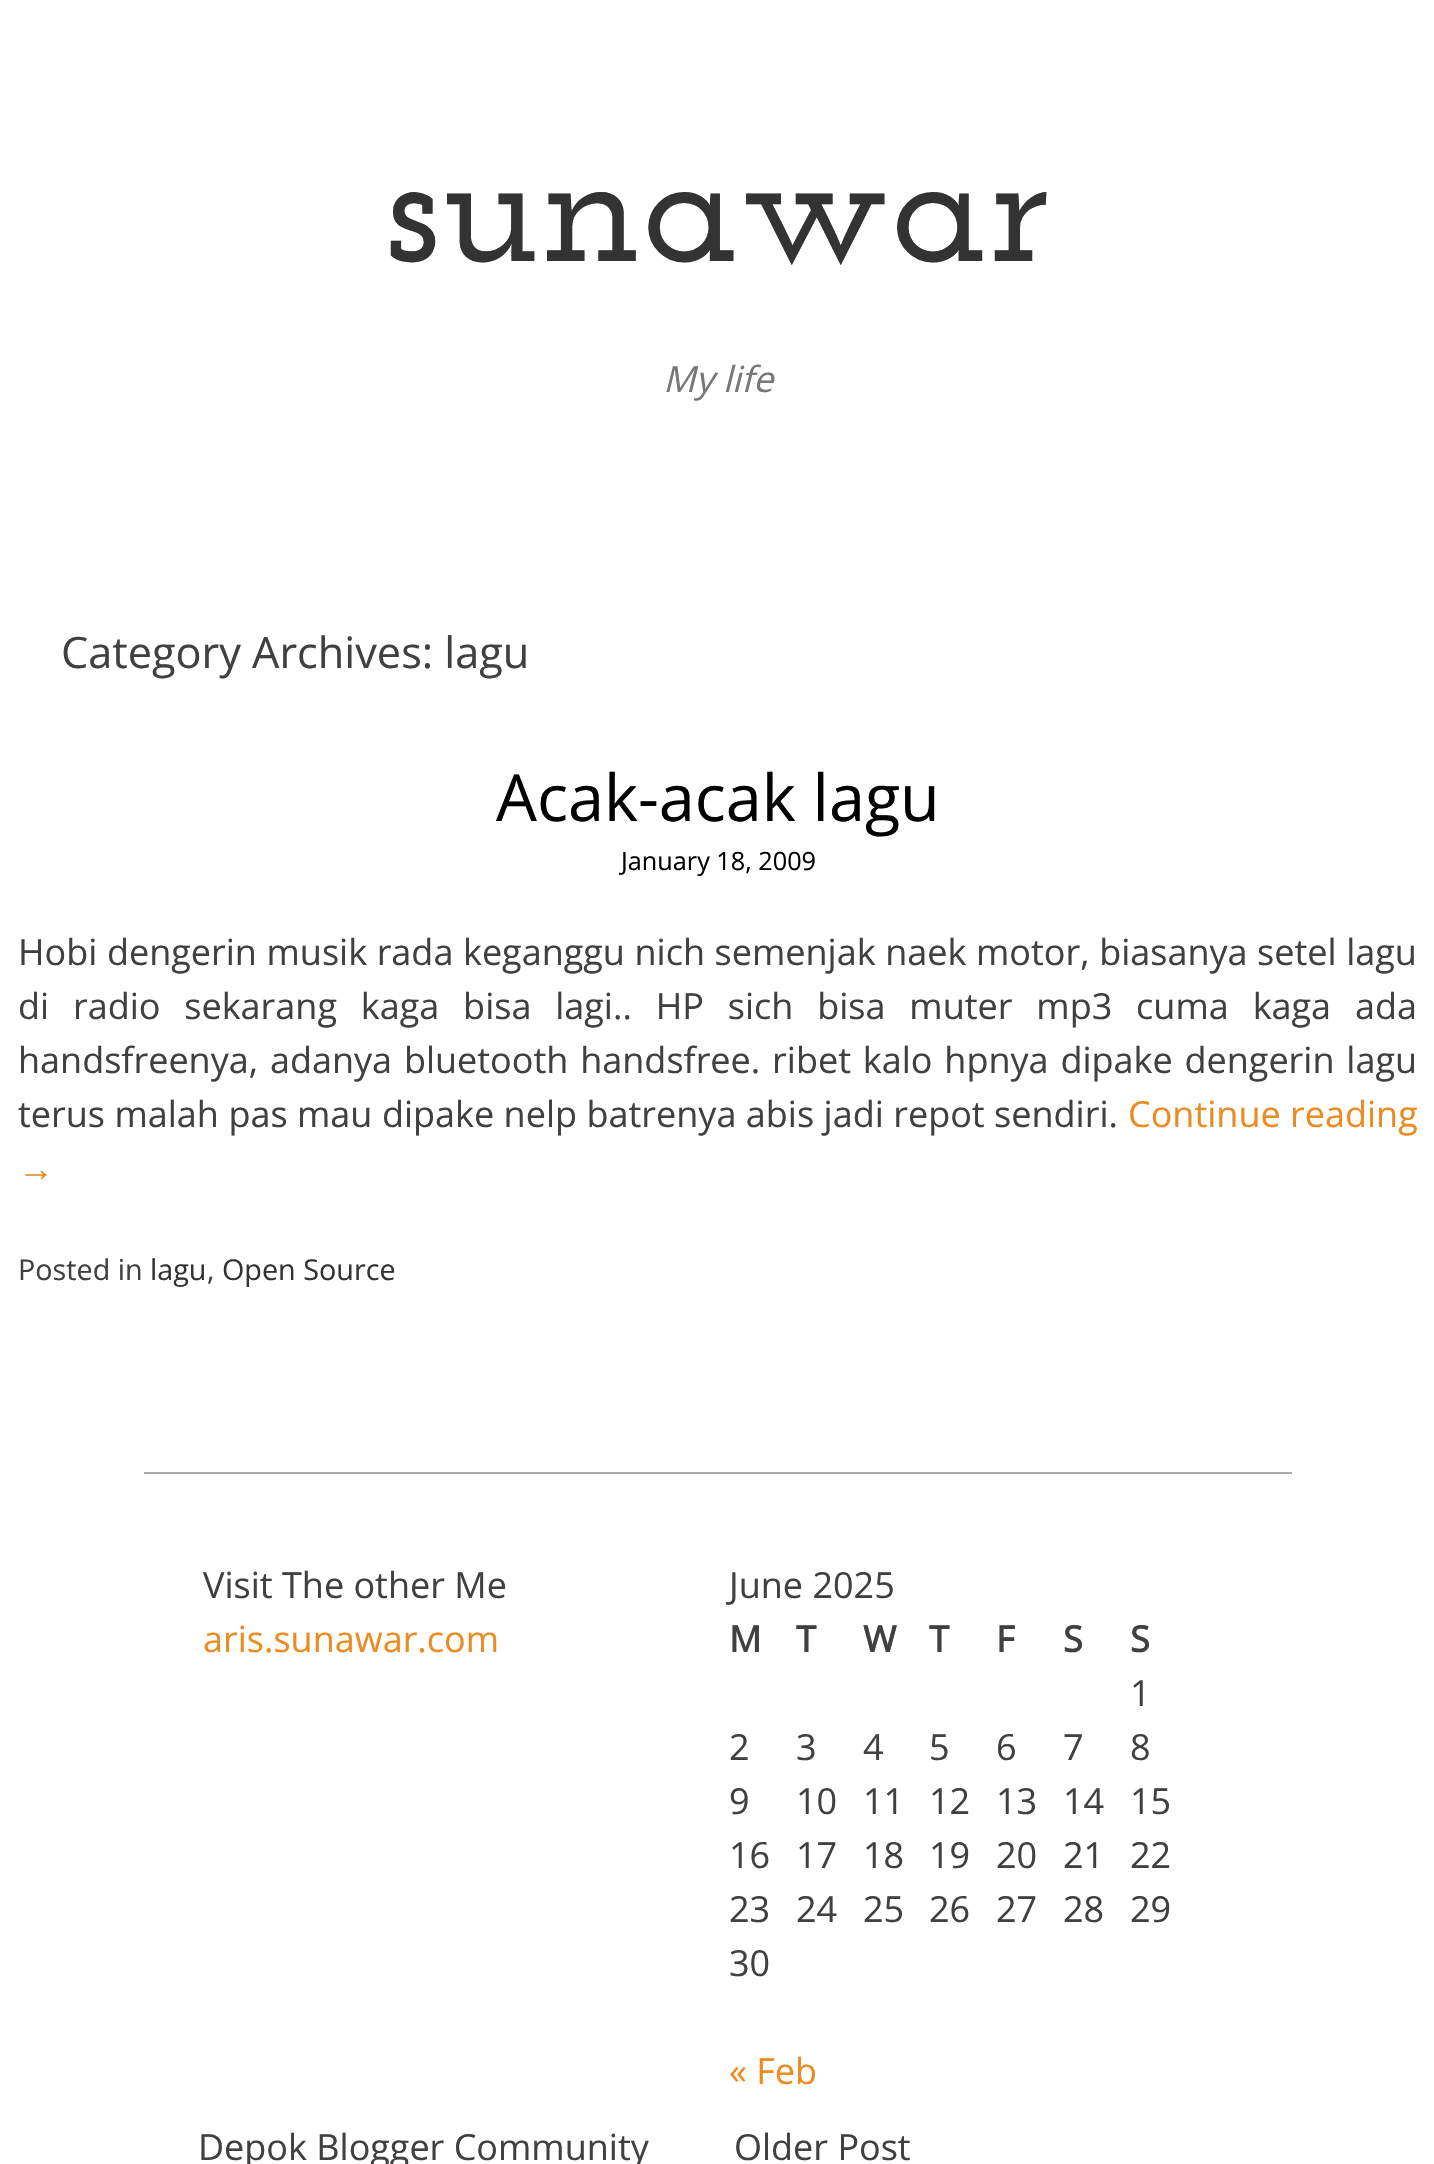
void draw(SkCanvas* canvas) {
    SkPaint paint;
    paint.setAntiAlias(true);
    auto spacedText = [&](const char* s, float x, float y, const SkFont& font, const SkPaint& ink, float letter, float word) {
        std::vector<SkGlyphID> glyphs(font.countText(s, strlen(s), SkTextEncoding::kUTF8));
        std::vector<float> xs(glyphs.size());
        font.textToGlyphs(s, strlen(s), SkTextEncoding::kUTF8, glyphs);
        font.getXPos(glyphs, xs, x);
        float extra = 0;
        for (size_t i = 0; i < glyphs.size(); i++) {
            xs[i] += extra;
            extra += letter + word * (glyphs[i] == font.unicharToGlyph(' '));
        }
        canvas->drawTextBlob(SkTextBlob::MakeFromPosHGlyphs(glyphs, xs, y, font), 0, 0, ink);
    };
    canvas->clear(0xFFFFFFFF);
    SkFont font1(fontMgr->matchFamilyStyle("Josefin Slab", SkFontStyle(100, SkFontStyle::kNormal_Width, SkFontStyle::kUpright_Slant)), 180);
    font1.setSubpixel(true);
    paint.setColor(0xFF333333);
    canvas->drawString("sunawar", 382, 261, font1, paint);
    SkFont font2(fontMgr->matchFamilyStyle("Open Sans", SkFontStyle::Italic()), 36);
    font2.setSubpixel(true);
    paint.setColor(0xFF777777);
    canvas->drawString("My life", 663, 392, font2, paint);
    SkFont font3(fontMgr->matchFamilyStyle("Open Sans", SkFontStyle::Normal()), 43.25f);
    font3.setSubpixel(true);
    paint.setColor(0xFF404040);
    canvas->drawString("Category Archives: lagu", 61, 668, font3, paint);
    SkFont font4(fontMgr->matchFamilyStyle("Open Sans", SkFontStyle::Normal()), 64.75f);
    font4.setSubpixel(true);
    paint.setColor(0xFF000000);
    canvas->drawString("Acak-acak lagu", 496, 821, font4, paint);
    SkFont font5(fontMgr->matchFamilyStyle("Open Sans", SkFontStyle::Normal()), 25.25f);
    font5.setSubpixel(true);
    canvas->drawString("January 18, 2009", 621, 870, font5, paint);
    SkFont font6(fontMgr->matchFamilyStyle("Open Sans", SkFontStyle::Normal()), 36);
    font6.setSubpixel(true);
    paint.setColor(0xFF404040);
    spacedText("Hobi dengerin musik rada keganggu nich semenjak naek motor, biasanya setel lagu", 18, 965, font6, paint, 0, 0.25f);
    spacedText("di radio sekarang kaga bisa lagi.. HP sich bisa muter mp3 cuma kaga ada", 18, 1019, font6, paint, 0, 14.5f);
    spacedText("handsfreenya, adanya bluetooth handsfree. ribet kalo hpnya dipake dengerin lagu", 18, 1073, font6, paint, 0, 2.5f);
    spacedText("terus malah pas mau dipake nelp batrenya abis jadi repot sendiri.", 18, 1127, font6, paint, 0, 0.1f);
    paint.setColor(0xFFEB8B21);
    canvas->drawString("Continue reading", 1128, 1127, font6, paint);
    SkFont font7(fontMgr->matchFamilyStyle("Liberation Sans", SkFontStyle::Normal()), 36);
    font7.setSubpixel(true);
    canvas->drawString("→", 18, 1181, font7, paint);
    SkFont font8(fontMgr->matchFamilyStyle("Open Sans", SkFontStyle::Normal()), 28.75f);
    font8.setSubpixel(true);
    paint.setColor(0xFF404040);
    canvas->drawString("Posted in", 18, 1280, font8, paint);
    paint.setColor(0xFF333333);
    canvas->drawString("lagu", 150, 1280, font8, paint);
    paint.setColor(0xFF404040);
    canvas->drawString(",", 207, 1280, font8, paint);
    paint.setColor(0xFF333333);
    canvas->drawString("Open Source", 222, 1280, font8, paint);
    paint.setColor(0xFFAAAAAA);
    canvas->drawRect(SkRect::MakeXYWH(144, 1472, 1148, 2), paint);
    paint.setColor(0xFF404040);
    canvas->drawString("Visit The other Me", 203, 1598, font6, paint);
    paint.setColor(0xFFEB8B21);
    canvas->drawString("aris.sunawar.com", 203, 1652, font6, paint);
    paint.setColor(0xFF404040);
    canvas->drawString("June 2025", 729, 1598, font6, paint);
    SkFont font9(fontMgr->matchFamilyStyle("Open Sans", SkFontStyle::Bold()), 36);
    font9.setSubpixel(true);
    canvas->drawString("M", 729, 1652, font9, paint);
    canvas->drawString("T", 796, 1652, font9, paint);
    canvas->drawString("W", 863, 1652, font9, paint);
    canvas->drawString("T", 929, 1652, font9, paint);
    canvas->drawString("F", 996, 1652, font9, paint);
    canvas->drawString("S", 1063, 1652, font9, paint);
    canvas->drawString("S", 1130, 1652, font9, paint);
    canvas->drawString("1", 1130, 1706, font6, paint);
    canvas->drawString("2", 729, 1760, font6, paint);
    canvas->drawString("3", 796, 1760, font6, paint);
    canvas->drawString("4", 863, 1760, font6, paint);
    canvas->drawString("5", 929, 1760, font6, paint);
    canvas->drawString("6", 996, 1760, font6, paint);
    canvas->drawString("7", 1063, 1760, font6, paint);
    canvas->drawString("8", 1130, 1760, font6, paint);
    canvas->drawString("9", 729, 1814, font6, paint);
    canvas->drawString("10", 796, 1814, font6, paint);
    canvas->drawString("11", 863, 1814, font6, paint);
    canvas->drawString("12", 929, 1814, font6, paint);
    canvas->drawString("13", 996, 1814, font6, paint);
    canvas->drawString("14", 1063, 1814, font6, paint);
    canvas->drawString("15", 1130, 1814, font6, paint);
    canvas->drawString("16", 729, 1868, font6, paint);
    canvas->drawString("17", 796, 1868, font6, paint);
    canvas->drawString("18", 863, 1868, font6, paint);
    canvas->drawString("19", 929, 1868, font6, paint);
    canvas->drawString("20", 996, 1868, font6, paint);
    canvas->drawString("21", 1063, 1868, font6, paint);
    canvas->drawString("22", 1130, 1868, font6, paint);
    canvas->drawString("23", 729, 1922, font6, paint);
    canvas->drawString("24", 796, 1922, font6, paint);
    canvas->drawString("25", 863, 1922, font6, paint);
    canvas->drawString("26", 929, 1922, font6, paint);
    canvas->drawString("27", 996, 1922, font6, paint);
    canvas->drawString("28", 1063, 1922, font6, paint);
    canvas->drawString("29", 1130, 1922, font6, paint);
    canvas->drawString("30", 729, 1976, font6, paint);
    paint.setColor(0xFFEB8B21);
    canvas->drawString("« Feb", 729, 2084, font6, paint);
    paint.setColor(0xFF404040);
    canvas->drawString("Depok Blogger Community", 198, 2160, font6, paint);
    canvas->drawString("Older Post", 734, 2160, font6, paint);
}
